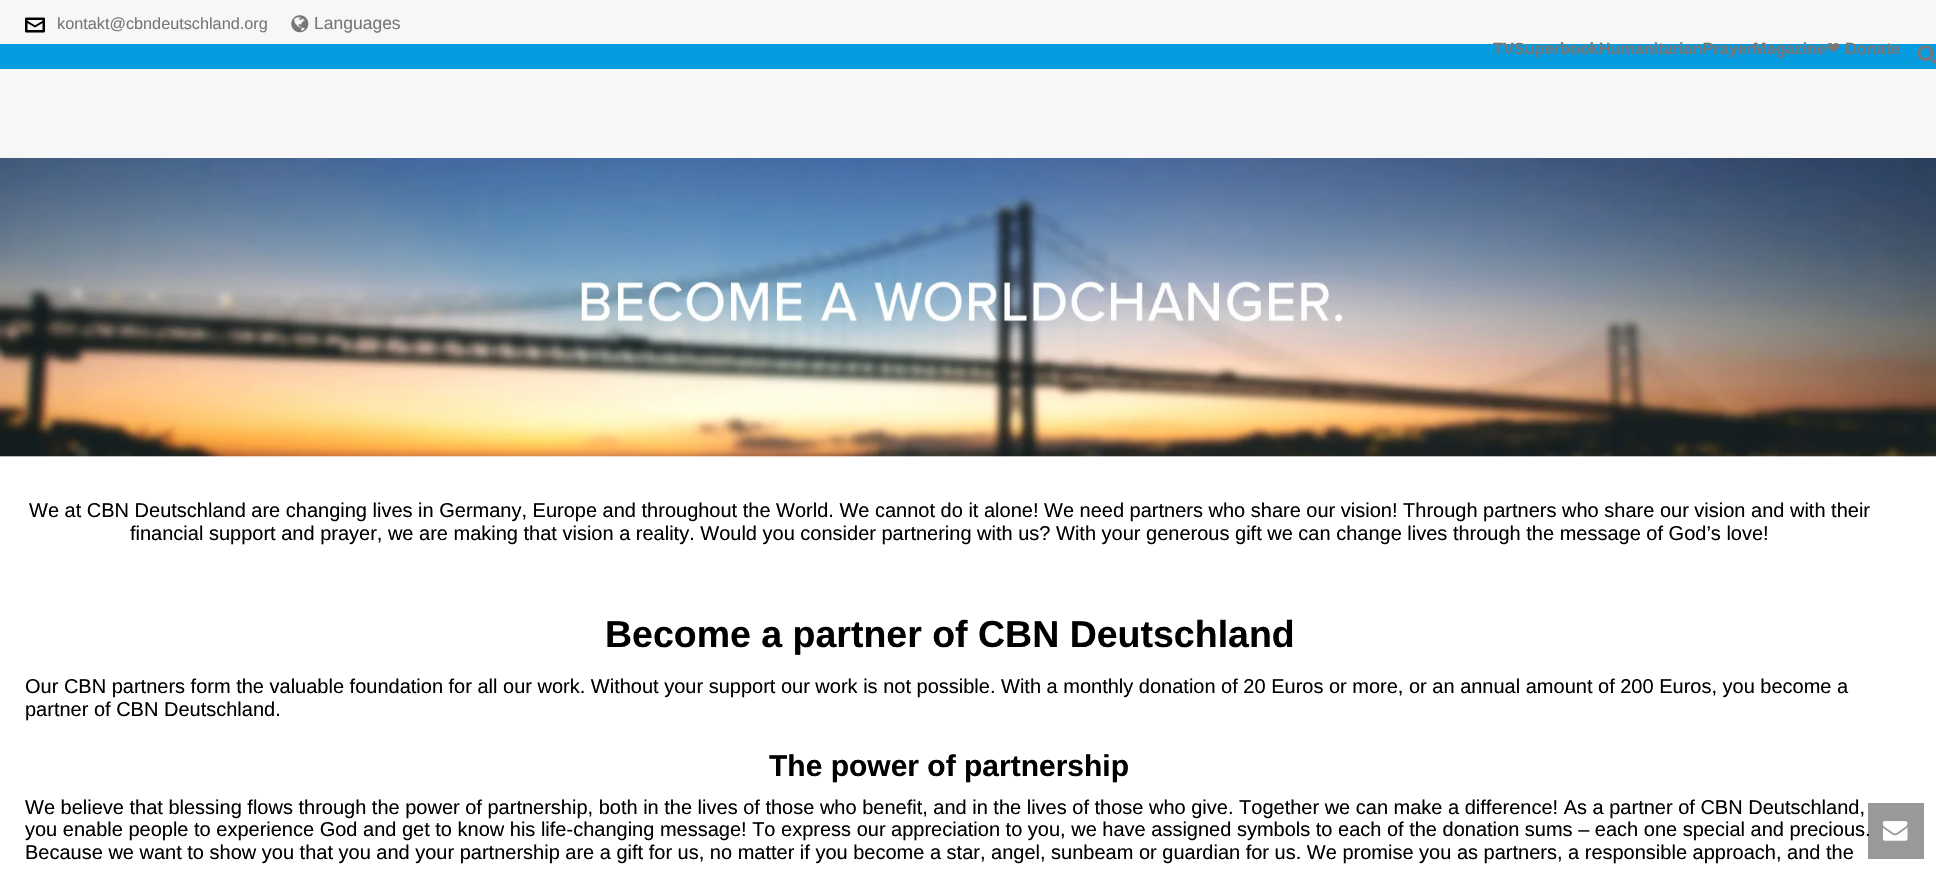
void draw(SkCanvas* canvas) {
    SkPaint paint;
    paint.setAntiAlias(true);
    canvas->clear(0xFFFFFFFF);
    paint.setColor(0xFFF7F7F7);
    canvas->drawRect(SkRect::MakeXYWH(0, 0, 1936, 158), paint);
    canvas->drawImageRect(SkImages::DeferredFromEncodedData(SkData::MakeFromFileName("img1.png")), SkRect::MakeXYWH(25, 17, 20, 16), SkSamplingOptions());
    SkFont font1(fontMgr->matchFamilyStyle("Liberation Sans", SkFontStyle::Normal()), 16.25f);
    font1.setSubpixel(true);
    paint.setColor(0xFF777777);
    canvas->drawString("kontakt@cbndeutschland.org", 57, 29, font1, paint);
    canvas->drawImageRect(SkImages::DeferredFromEncodedData(SkData::MakeFromFileName("img2.png")), SkRect::MakeXYWH(291, 15, 18, 18), SkSamplingOptions());
    SkFont font2(fontMgr->matchFamilyStyle("Liberation Sans", SkFontStyle::Normal()), 17.5f);
    font2.setSubpixel(true);
    canvas->drawString("Languages", 314, 29, font2, paint);
    paint.setColor(0xFF079BDF);
    canvas->drawRect(SkRect::MakeXYWH(0, 44, 1936, 25), paint);
    SkFont font3(fontMgr->matchFamilyStyle("Liberation Sans", SkFontStyle::Bold()), 16.25f);
    font3.setSubpixel(true);
    paint.setColor(0xFF777777);
    canvas->drawString("TVSuperbookHumanitarianPrayerMagazine", 1493, 54, font3, paint);
    SkFont font4(fontMgr->matchFamilyStyle("DejaVu Sans", SkFontStyle::Bold()), 16.25f);
    font4.setSubpixel(true);
    canvas->drawString("❤", 1826, 54, font4, paint);
    canvas->drawString("Donate", 1845, 54, font3, paint);
    canvas->drawImageRect(SkImages::DeferredFromEncodedData(SkData::MakeFromFileName("img3.png")), SkRect::MakeXYWH(1918, 45, 18, 19), SkSamplingOptions());
    canvas->drawImageRect(SkImages::DeferredFromEncodedData(SkData::MakeFromFileName("img4.png")), SkRect::MakeXYWH(0, 158, 1936, 299), SkSamplingOptions());
    SkFont font5(fontMgr->matchFamilyStyle("Liberation Sans", SkFontStyle::Normal()), 20);
    font5.setSubpixel(true);
    paint.setColor(0xFF000000);
    canvas->drawString("We at CBN Deutschland are changing lives in Germany, Europe and throughout the World. We cannot do it alone! We need partners who share our vision! Through partners who share our vision and with their", 29, 517, font5, paint);
    canvas->drawString("financial support and prayer, we are making that vision a reality. Would you consider partnering with us? With your generous gift we can change lives through the message of God’s love!", 130, 540, font5, paint);
    SkFont font6(fontMgr->matchFamilyStyle("Liberation Sans", SkFontStyle::Bold()), 37.5f);
    font6.setSubpixel(true);
    canvas->drawString("Become a partner of CBN Deutschland", 605, 647, font6, paint);
    canvas->drawString("Our CBN partners form the valuable foundation for all our work. Without your support our work is not possible. With a monthly donation of 20 Euros or more, or an annual amount of 200 Euros, you become a", 25, 693, font5, paint);
    canvas->drawString("partner of CBN Deutschland.", 25, 716, font5, paint);
    SkFont font7(fontMgr->matchFamilyStyle("Liberation Sans", SkFontStyle::Bold()), 30);
    font7.setSubpixel(true);
    canvas->drawString("The power of partnership", 769, 776, font7, paint);
    canvas->drawString("We believe that blessing flows through the power of partnership, both in the lives of those who benefit, and in the lives of those who give. Together we can make a difference! As a partner of CBN Deutschland,", 25, 814, font5, paint);
    canvas->drawString("you enable people to experience God and get to know his life-changing message! To express our appreciation to you, we have assigned symbols to each of the donation sums – each one special and precious.", 25, 836, font5, paint);
    canvas->drawString("Because we want to show you that you and your partnership are a gift for us, no matter if you become a star, angel, sunbeam or guardian for us. We promise you as partners, a responsible approach, and the", 25, 859, font5, paint);
    paint.setColor(0x66000000);
    canvas->drawRect(SkRect::MakeXYWH(1868, 803, 56, 56), paint);
    canvas->drawImageRect(SkImages::DeferredFromEncodedData(SkData::MakeFromFileName("img5.png")), SkRect::MakeXYWH(1883, 821, 25, 20), SkSamplingOptions());
}
